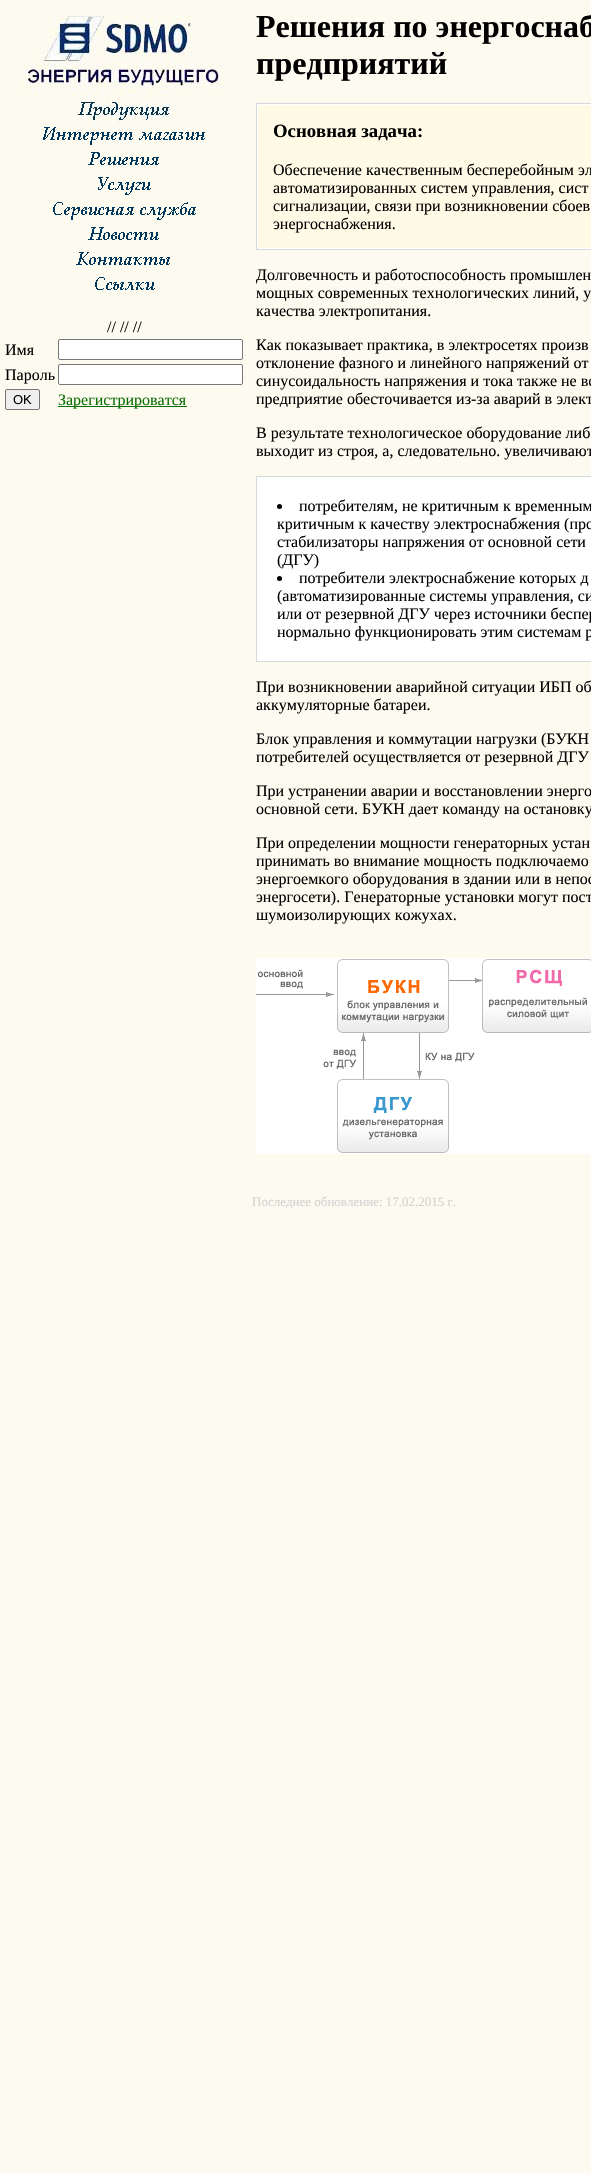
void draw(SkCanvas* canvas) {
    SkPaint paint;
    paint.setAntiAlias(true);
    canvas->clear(0xFFFDFAEF);
    canvas->drawImageRect(SkImages::DeferredFromEncodedData(SkData::MakeFromFileName("img1.png")), SkRect::MakeXYWH(16, 16, 208, 80), SkSamplingOptions());
    canvas->drawImageRect(SkImages::DeferredFromEncodedData(SkData::MakeFromFileName("img2.png")), SkRect::MakeXYWH(72, 100, 104, 25), SkSamplingOptions());
    canvas->drawImageRect(SkImages::DeferredFromEncodedData(SkData::MakeFromFileName("img3.png")), SkRect::MakeXYWH(43, 127, 162, 18), SkSamplingOptions());
    canvas->drawImageRect(SkImages::DeferredFromEncodedData(SkData::MakeFromFileName("img4.png")), SkRect::MakeXYWH(88, 152, 71, 13), SkSamplingOptions());
    canvas->drawImageRect(SkImages::DeferredFromEncodedData(SkData::MakeFromFileName("img5.png")), SkRect::MakeXYWH(98, 177, 53, 18), SkSamplingOptions());
    canvas->drawImageRect(SkImages::DeferredFromEncodedData(SkData::MakeFromFileName("img6.png")), SkRect::MakeXYWH(53, 202, 143, 18), SkSamplingOptions());
    canvas->drawImageRect(SkImages::DeferredFromEncodedData(SkData::MakeFromFileName("img7.png")), SkRect::MakeXYWH(88, 227, 71, 13), SkSamplingOptions());
    canvas->drawImageRect(SkImages::DeferredFromEncodedData(SkData::MakeFromFileName("img8.png")), SkRect::MakeXYWH(76, 252, 94, 13), SkSamplingOptions());
    canvas->drawImageRect(SkImages::DeferredFromEncodedData(SkData::MakeFromFileName("img9.png")), SkRect::MakeXYWH(95, 277, 60, 13), SkSamplingOptions());
    SkFont font1(fontMgr->matchFamilyStyle("Liberation Serif", SkFontStyle::Normal()), 16);
    font1.setSubpixel(true);
    paint.setColor(0xFF000000);
    canvas->drawString("// // //", 107, 332, font1, paint);
    canvas->drawString("Имя", 5, 355, font1, paint);
    paint.setColor(0xFFFFFFFF);
    canvas->drawRoundRect(SkRect::MakeXYWH(58.5f, 339.5f, 184, 20), 1.5f, 1.5f, paint);
    paint.setStyle(SkPaint::kStroke_Style);
    paint.setStrokeWidth(1);
    paint.setColor(0xFF767676);
    canvas->drawRoundRect(SkRect::MakeXYWH(58.5f, 339.5f, 184, 20), 1.5f, 1.5f, paint);
    paint.setStyle(SkPaint::kFill_Style);
    paint.setColor(0xFF000000);
    canvas->drawString("Пароль", 5, 380, font1, paint);
    paint.setColor(0xFFFFFFFF);
    canvas->drawRoundRect(SkRect::MakeXYWH(58.5f, 364.5f, 184, 20), 1.5f, 1.5f, paint);
    paint.setStyle(SkPaint::kStroke_Style);
    paint.setColor(0xFF767676);
    canvas->drawRoundRect(SkRect::MakeXYWH(58.5f, 364.5f, 184, 20), 1.5f, 1.5f, paint);
    paint.setStyle(SkPaint::kFill_Style);
    paint.setColor(0xFFEFEFEF);
    canvas->drawRoundRect(SkRect::MakeXYWH(5.5f, 389.5f, 34, 20), 1.5f, 1.5f, paint);
    paint.setStyle(SkPaint::kStroke_Style);
    paint.setColor(0xFF767676);
    canvas->drawRoundRect(SkRect::MakeXYWH(5.5f, 389.5f, 34, 20), 1.5f, 1.5f, paint);
    SkFont font2(fontMgr->matchFamilyStyle("Liberation Sans", SkFontStyle::Normal()), 13);
    font2.setSubpixel(true);
    paint.setStyle(SkPaint::kFill_Style);
    paint.setColor(0xFF000000);
    canvas->drawString("OK", 13, 404, font2, paint);
    paint.setColor(0xFF0C6F05);
    canvas->drawRect(SkRect::MakeXYWH(58, 406, 129, 1), paint);
    canvas->drawString("Зарегистрироватся", 58, 405, font1, paint);
    SkFont font3(fontMgr->matchFamilyStyle("Liberation Serif", SkFontStyle::Bold()), 32);
    font3.setSubpixel(true);
    paint.setColor(0xFF000000);
    canvas->drawString("Решения по энергоснаб", 256, 37, font3, paint);
    canvas->drawString("предприятий", 256, 74, font3, paint);
    paint.setColor(0xFFD6D9DC);
    canvas->drawRect(SkRect::MakeXYWH(256, 103, 335, 147), paint);
    paint.setColor(0xFFFFFFFF);
    canvas->drawRect(SkRect::MakeXYWH(257, 104, 334, 145), paint);
    paint.setColor(0xFFFEFAE5);
    canvas->drawRect(SkRect::MakeXYWH(258, 105, 333, 143), paint);
    SkFont font4(fontMgr->matchFamilyStyle("Liberation Serif", SkFontStyle::Bold()), 18.75f);
    font4.setSubpixel(true);
    paint.setColor(0xFF000000);
    canvas->drawString("Основная задача:", 273, 137, font4, paint);
    canvas->drawString("Обеспечение качественным бесперебойным эл", 273, 175, font1, paint);
    canvas->drawString("автоматизированных систем управления, сист", 273, 193, font1, paint);
    canvas->drawString("сигнализации, связи при возникновении сбоев", 273, 211, font1, paint);
    canvas->drawString("энергоснабжения.", 273, 229, font1, paint);
    canvas->drawString("Долговечность и работоспособность промышлен", 256, 280, font1, paint);
    canvas->drawString("мощных современных технологических линий, у", 256, 298, font1, paint);
    canvas->drawString("качества электропитания.", 256, 316, font1, paint);
    canvas->drawString("Как показывает практика, в электросетях произв", 256, 350, font1, paint);
    canvas->drawString("отклонение фазного и линейного напряжений от", 256, 368, font1, paint);
    canvas->drawString("синусоидальность напряжения и тока также не вс", 256, 386, font1, paint);
    canvas->drawString("предприятие обесточивается из-за аварий в элект", 256, 404, font1, paint);
    canvas->drawString("В результате технологическое оборудование либ", 256, 438, font1, paint);
    canvas->drawString("выходит из строя, а, следовательно. увеличивают", 256, 456, font1, paint);
    paint.setColor(0xFFD6D9DC);
    canvas->drawRect(SkRect::MakeXYWH(256, 476, 335, 186), paint);
    paint.setColor(0xFFFFFFFF);
    canvas->drawRect(SkRect::MakeXYWH(257, 477, 334, 184), paint);
    paint.setColor(0xFF000000);
    canvas->drawCircle(279.5f, 506.5f, 2.5f, paint);
    canvas->drawString("потребителям, не критичным к временным", 299, 511, font1, paint);
    canvas->drawString("критичным к качеству электроснабжения (про", 277, 529, font1, paint);
    canvas->drawString("стабилизаторы напряжения от основной сети", 277, 547, font1, paint);
    canvas->drawString("(ДГУ)", 277, 565, font1, paint);
    canvas->drawCircle(279.5f, 578.5f, 2.5f, paint);
    canvas->drawString("потребители электроснабжение которых д", 299, 583, font1, paint);
    canvas->drawString("(автоматизированные системы управления, си", 277, 601, font1, paint);
    canvas->drawString("или от резервной ДГУ через источники беспер", 277, 619, font1, paint);
    canvas->drawString("нормально функционировать этим системам р", 277, 637, font1, paint);
    canvas->drawString("При возникновении аварийной ситуации ИБП об", 256, 692, font1, paint);
    canvas->drawString("аккумуляторные батареи.", 256, 710, font1, paint);
    canvas->drawString("Блок управления и коммутации нагрузки (БУКН", 256, 744, font1, paint);
    canvas->drawString("потребителей осуществляется от резервной ДГУ", 256, 762, font1, paint);
    canvas->drawString("При устранении аварии и восстановлении энерго", 256, 796, font1, paint);
    canvas->drawString("основной сети. БУКН дает команду на остановку", 256, 814, font1, paint);
    canvas->drawString("При определении мощности генераторных устан", 256, 848, font1, paint);
    canvas->drawString("принимать во внимание мощность подключаемо", 256, 866, font1, paint);
    canvas->drawString("энергоемкого оборудования в здании или в непос", 256, 884, font1, paint);
    canvas->drawString("энергосети). Генераторные установки могут пост", 256, 902, font1, paint);
    canvas->drawString("шумоизолирующих кожухах.", 256, 920, font1, paint);
    canvas->drawImageRect(SkImages::DeferredFromEncodedData(SkData::MakeFromFileName("img10.png")), SkRect::MakeXYWH(256, 958, 335, 196), SkSamplingOptions());
    SkFont font5(fontMgr->matchFamilyStyle("Liberation Serif", SkFontStyle::Normal()), 13);
    font5.setSubpixel(true);
    paint.setColor(0xFFD3D3D3);
    canvas->drawString("Последнее обновление: 17.02.2015 г.", 252, 1206, font5, paint);
}
